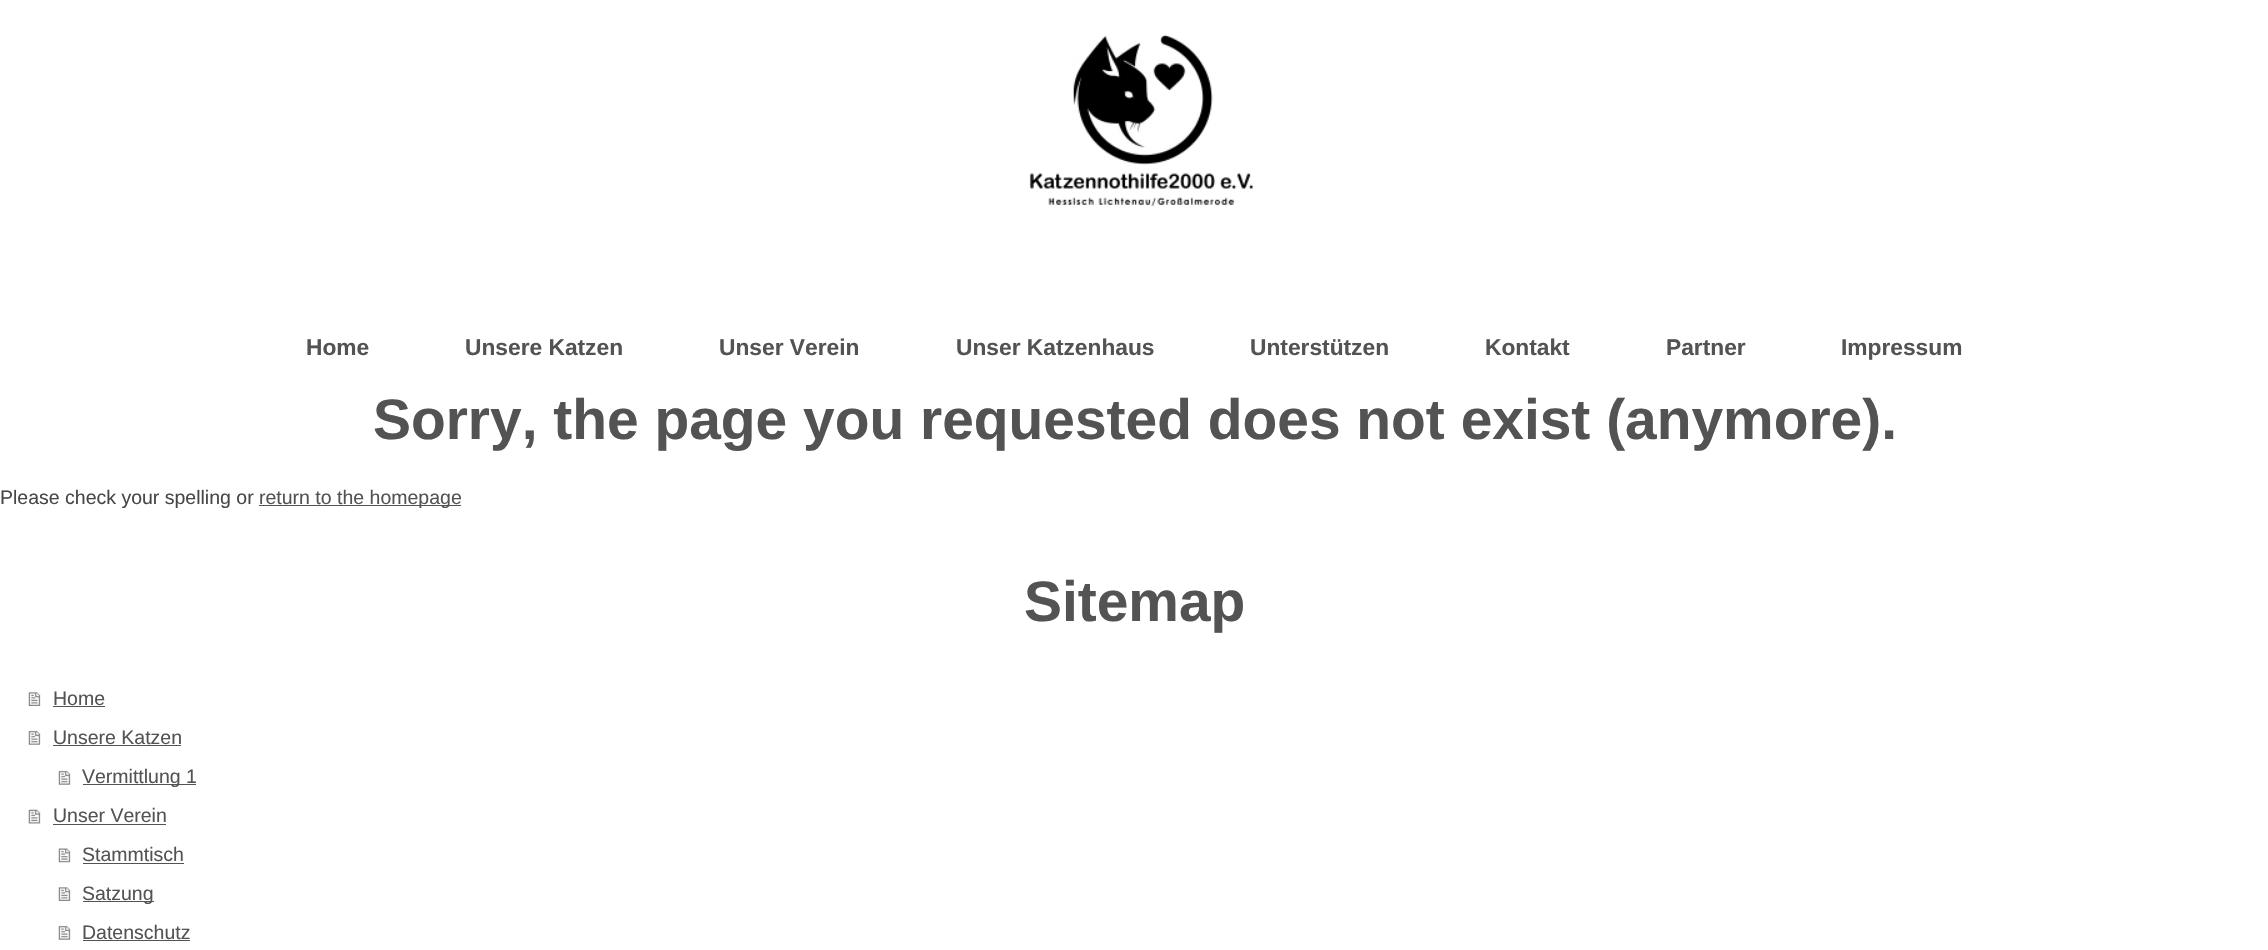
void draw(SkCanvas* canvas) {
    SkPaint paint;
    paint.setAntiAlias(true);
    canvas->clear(0xFFFFFFFF);
    canvas->drawImageRect(SkImages::DeferredFromEncodedData(SkData::MakeFromFileName("img1.png")), SkRect::MakeXYWH(1029, 34, 225, 173), SkSamplingOptions());
    SkFont font1(fontMgr->matchFamilyStyle("Liberation Sans", SkFontStyle::Bold()), 22.75f);
    font1.setSubpixel(true);
    paint.setColor(0xFF535353);
    canvas->drawString("Home", 306, 355, font1, paint);
    canvas->drawString("Unsere Katzen", 465, 355, font1, paint);
    canvas->drawString("Unser Verein", 719, 355, font1, paint);
    canvas->drawString("Unser Katzenhaus", 956, 355, font1, paint);
    canvas->drawString("Unterstützen", 1250, 355, font1, paint);
    canvas->drawString("Kontakt", 1485, 355, font1, paint);
    canvas->drawString("Partner", 1666, 355, font1, paint);
    canvas->drawString("Impressum", 1841, 355, font1, paint);
    SkFont font2(fontMgr->matchFamilyStyle("Liberation Sans", SkFontStyle::Bold()), 56.9f);
    font2.setSubpixel(true);
    canvas->drawString("Sorry, the page you requested does not exist (anymore).", 373, 439, font2, paint);
    SkFont font3(fontMgr->matchFamilyStyle("Liberation Sans", SkFontStyle::Normal()), 19.5f);
    font3.setSubpixel(true);
    paint.setColor(0xFF474747);
    canvas->drawString("Please check your spelling or", 0, 504, font3, paint);
    paint.setColor(0xFF535353);
    canvas->drawRect(SkRect::MakeXYWH(259, 505, 202, 1), paint);
    canvas->drawString("return to the homepage", 259, 504, font3, paint);
    canvas->drawString("Sitemap", 1024, 621, font2, paint);
    canvas->drawImageRect(SkImages::DeferredFromEncodedData(SkData::MakeFromFileName("img2.png")), SkRect::MakeXYWH(28, 692, 13, 14), SkSamplingOptions());
    canvas->drawString("Home", 53, 705, font3, paint);
    canvas->drawRect(SkRect::MakeXYWH(53, 706, 52, 1), paint);
    canvas->drawImageRect(SkImages::DeferredFromEncodedData(SkData::MakeFromFileName("img3.png")), SkRect::MakeXYWH(28, 730, 13, 15), SkSamplingOptions());
    canvas->drawString("Unsere Katzen", 53, 744, font3, paint);
    canvas->drawRect(SkRect::MakeXYWH(53, 745, 128, 1), paint);
    canvas->drawImageRect(SkImages::DeferredFromEncodedData(SkData::MakeFromFileName("img4.png")), SkRect::MakeXYWH(58, 770, 13, 15), SkSamplingOptions());
    canvas->drawRect(SkRect::MakeXYWH(83, 784, 113, 1), paint);
    canvas->drawString("Vermittlung 1", 82, 783, font3, paint);
    canvas->drawImageRect(SkImages::DeferredFromEncodedData(SkData::MakeFromFileName("img5.png")), SkRect::MakeXYWH(28, 809, 13, 15), SkSamplingOptions());
    canvas->drawString("Unser Verein", 53, 822, font3, paint);
    canvas->drawRect(SkRect::MakeXYWH(53, 824, 113, 1), paint);
    canvas->drawImageRect(SkImages::DeferredFromEncodedData(SkData::MakeFromFileName("img6.png")), SkRect::MakeXYWH(58, 848, 13, 15), SkSamplingOptions());
    canvas->drawString("Stammtisch", 82, 861, font3, paint);
    canvas->drawRect(SkRect::MakeXYWH(83, 863, 101, 1), paint);
    canvas->drawImageRect(SkImages::DeferredFromEncodedData(SkData::MakeFromFileName("img2.png")), SkRect::MakeXYWH(58, 887, 13, 14), SkSamplingOptions());
    canvas->drawRect(SkRect::MakeXYWH(83, 901, 71, 1), paint);
    canvas->drawString("Satzung", 82, 900, font3, paint);
    canvas->drawImageRect(SkImages::DeferredFromEncodedData(SkData::MakeFromFileName("img4.png")), SkRect::MakeXYWH(58, 925, 13, 15), SkSamplingOptions());
    canvas->drawString("Datenschutz", 82, 939, font3, paint);
    canvas->drawRect(SkRect::MakeXYWH(83, 940, 107, 1), paint);
}
